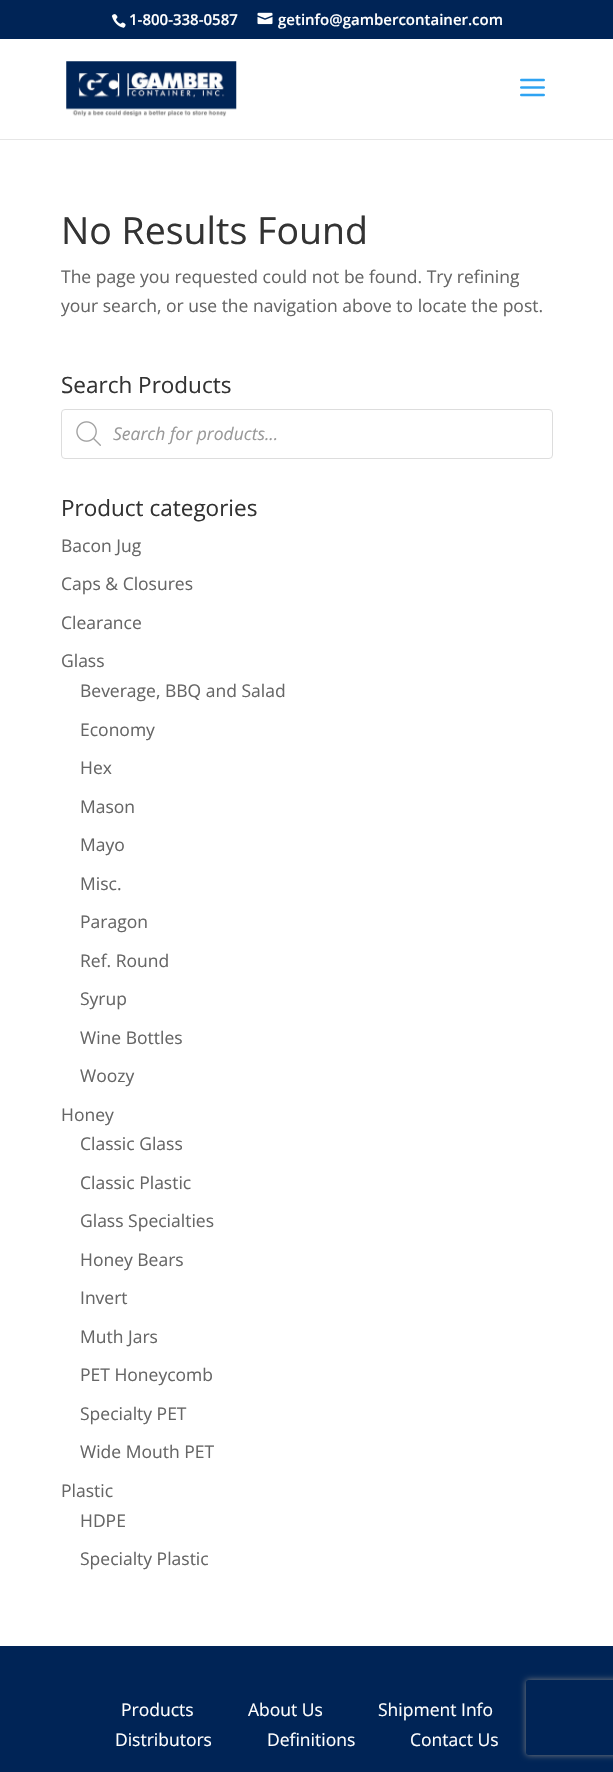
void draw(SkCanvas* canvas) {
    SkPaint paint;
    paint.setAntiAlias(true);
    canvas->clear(0xFFFFFFFF);
    paint.setColor(0xFF002456);
    canvas->drawRect(SkRect::MakeXYWH(0, 0, 613, 39), paint);
    canvas->drawImageRect(SkImages::DeferredFromEncodedData(SkData::MakeFromFileName("img1.png")), SkRect::MakeXYWH(111, 14, 15, 14), SkSamplingOptions());
    SkFont font1(fontMgr->matchFamilyStyle("Open Sans", SkFontStyle(600, SkFontStyle::kNormal_Width, SkFontStyle::kUpright_Slant)), 15);
    font1.setSubpixel(true);
    paint.setColor(0xFFFFFFFF);
    canvas->drawString("1-800-338-0587", 129, 25, font1, paint);
    canvas->drawImageRect(SkImages::DeferredFromEncodedData(SkData::MakeFromFileName("img2.png")), SkRect::MakeXYWH(257, 12, 16, 13), SkSamplingOptions());
    canvas->drawString("getinfo@gambercontainer.com", 278, 25, font1, paint);
    paint.setColor(0xFFE6E6E6);
    canvas->drawPath(SkPathBuilder().moveTo(0, 139).lineTo(0, 140).lineTo(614, 140).lineTo(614, 40).lineTo(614, 139).close().detach(), paint);
    canvas->drawImageRect(SkImages::DeferredFromEncodedData(SkData::MakeFromFileName("img3.png")), SkRect::MakeXYWH(66, 61, 171, 56), SkSamplingOptions());
    canvas->drawImageRect(SkImages::DeferredFromEncodedData(SkData::MakeFromFileName("img4.png")), SkRect::MakeXYWH(520, 78, 25, 19), SkSamplingOptions());
    SkFont font2(fontMgr->matchFamilyStyle("Open Sans", SkFontStyle::Normal()), 37.5f);
    font2.setSubpixel(true);
    paint.setColor(0xFF333333);
    canvas->drawString("No Results Found", 61, 244, font2, paint);
    SkFont font3(fontMgr->matchFamilyStyle("Open Sans", SkFontStyle::Normal()), 17.5f);
    font3.setSubpixel(true);
    paint.setColor(0xFF666666);
    canvas->drawString("The page you requested could not be found. Try refining", 61, 283, font3, paint);
    canvas->drawString("your search, or use the navigation above to locate the post.", 61, 312, font3, paint);
    SkFont font4(fontMgr->matchFamilyStyle("Open Sans", SkFontStyle::Normal()), 22.5f);
    font4.setSubpixel(true);
    paint.setColor(0xFF333333);
    canvas->drawString("Search Products", 61, 393, font4, paint);
    paint.setStyle(SkPaint::kStroke_Style);
    paint.setStrokeWidth(1);
    paint.setColor(0xFFDDDDDD);
    canvas->drawRoundRect(SkRect::MakeXYWH(61.5f, 409.5f, 491, 49), 3.5f, 3.5f, paint);
    canvas->drawImageRect(SkImages::DeferredFromEncodedData(SkData::MakeFromFileName("img5.png")), SkRect::MakeXYWH(76, 421, 25, 25), SkSamplingOptions());
    SkFont font5(fontMgr->matchFamilyStyle("Open Sans", SkFontStyle::Italic()), 17.5f);
    font5.setSubpixel(true);
    paint.setStyle(SkPaint::kFill_Style);
    paint.setColor(0xFF999999);
    canvas->drawString("Search for products...", 113, 440, font5, paint);
    paint.setColor(0xFF333333);
    canvas->drawString("Product categories", 61, 516, font4, paint);
    paint.setColor(0xFF666666);
    canvas->drawString("Bacon Jug", 61, 552, font3, paint);
    canvas->drawString("Caps & Closures", 61, 590, font3, paint);
    canvas->drawString("Clearance", 61, 629, font3, paint);
    canvas->drawString("Glass", 61, 667, font3, paint);
    canvas->drawString("Beverage, BBQ and Salad", 80, 697, font3, paint);
    canvas->drawString("Economy", 80, 736, font3, paint);
    canvas->drawString("Hex", 80, 774, font3, paint);
    canvas->drawString("Mason", 80, 813, font3, paint);
    canvas->drawString("Mayo", 80, 851, font3, paint);
    canvas->drawString("Misc.", 80, 890, font3, paint);
    canvas->drawString("Paragon", 80, 928, font3, paint);
    canvas->drawString("Ref. Round", 80, 967, font3, paint);
    canvas->drawString("Syrup", 80, 1005, font3, paint);
    canvas->drawString("Wine Bottles", 80, 1044, font3, paint);
    canvas->drawString("Woozy", 80, 1082, font3, paint);
    canvas->drawString("Honey", 61, 1121, font3, paint);
    canvas->drawString("Classic Glass", 80, 1150, font3, paint);
    canvas->drawString("Classic Plastic", 80, 1189, font3, paint);
    canvas->drawString("Glass Specialties", 80, 1227, font3, paint);
    canvas->drawString("Honey Bears", 80, 1266, font3, paint);
    canvas->drawString("Invert", 80, 1304, font3, paint);
    canvas->drawString("Muth Jars", 80, 1343, font3, paint);
    canvas->drawString("PET Honeycomb", 80, 1381, font3, paint);
    canvas->drawString("Specialty PET", 80, 1420, font3, paint);
    canvas->drawString("Wide Mouth PET", 80, 1458, font3, paint);
    canvas->drawString("Plastic", 61, 1497, font3, paint);
    canvas->drawString("HDPE", 80, 1527, font3, paint);
    canvas->drawString("Specialty Plastic", 80, 1565, font3, paint);
    paint.setColor(0xFF002456);
    canvas->drawRect(SkRect::MakeXYWH(0, 1646, 613, 126), paint);
    paint.setColor(0xFFFFFFFF);
    canvas->drawString("Products", 121, 1716, font3, paint);
    canvas->drawString("About Us", 248, 1716, font3, paint);
    canvas->drawString("Shipment Info", 378, 1716, font3, paint);
    canvas->drawString("Distributors", 115, 1746, font3, paint);
    canvas->drawString("Definitions", 267, 1746, font3, paint);
    canvas->drawString("Contact Us", 410, 1746, font3, paint);
    canvas->save();
    canvas->clipPath(SkPathBuilder(SkPathFillType::kEvenOdd).moveTo(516, 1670).lineTo(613, 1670).lineTo(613, 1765).lineTo(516, 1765).close().moveTo(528.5f, 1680).lineTo(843.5f, 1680).cubicTo(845, 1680, 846, 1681, 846, 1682.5f).lineTo(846, 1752.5f).cubicTo(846, 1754, 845, 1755, 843.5f, 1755).lineTo(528.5f, 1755).cubicTo(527, 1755, 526, 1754, 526, 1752.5f).lineTo(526, 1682.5f).cubicTo(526, 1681, 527, 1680, 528.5f, 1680).close().detach(), true);
    paint.setColor(0xFF808080);
    paint.setMaskFilter(SkMaskFilter::MakeBlur(kNormal_SkBlurStyle, 3));
    canvas->drawRoundRect(SkRect::MakeXYWH(526, 1680, 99, 75), 2.5f, 2.5f, paint);
    paint.setMaskFilter(nullptr);
    canvas->restore();
}
